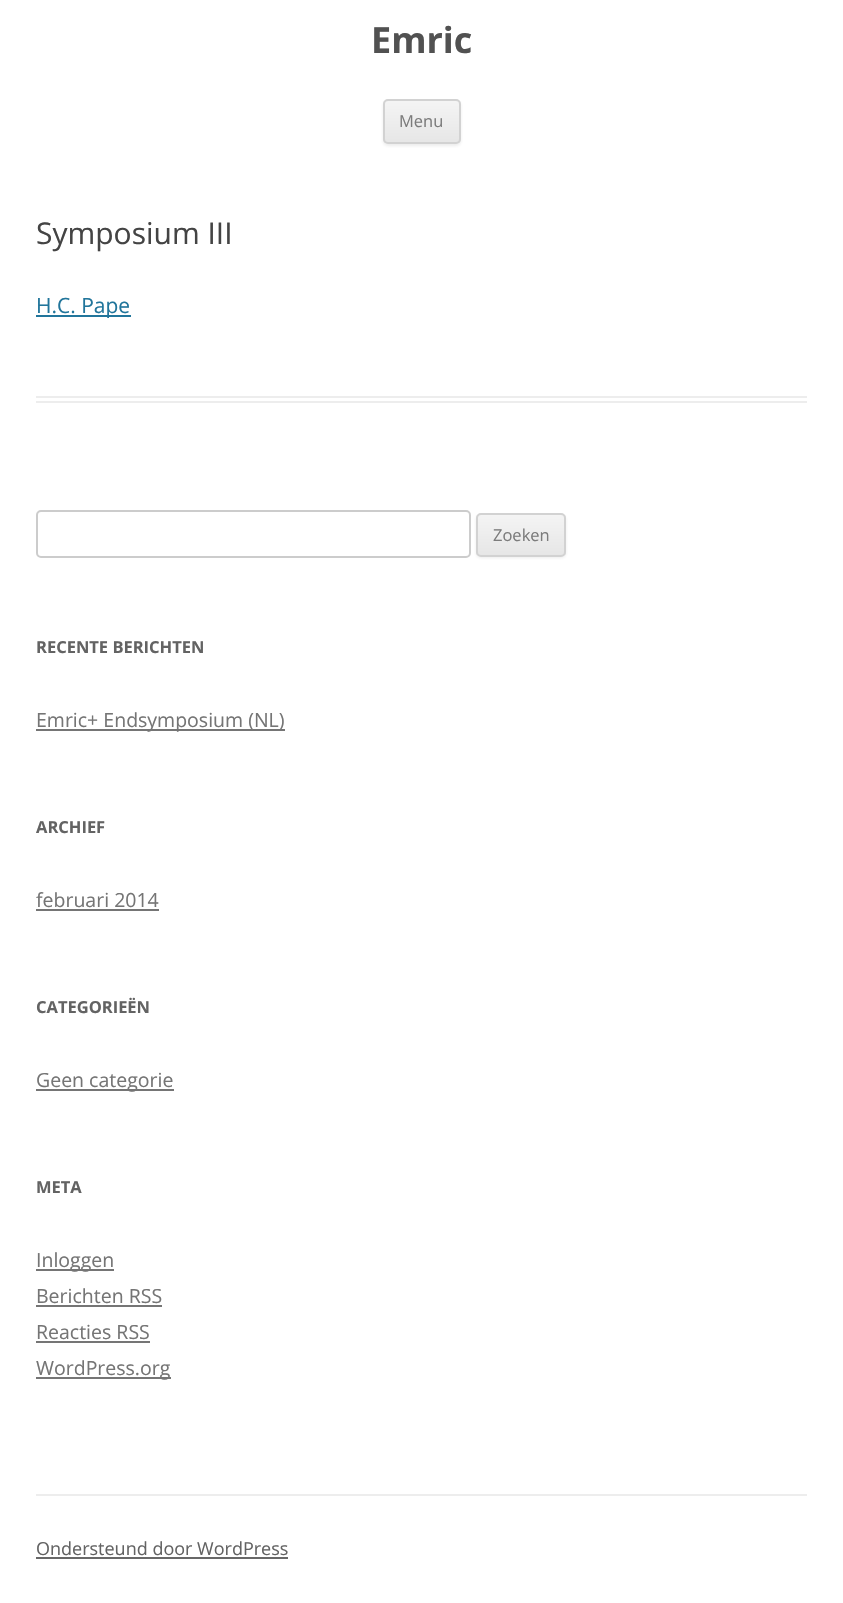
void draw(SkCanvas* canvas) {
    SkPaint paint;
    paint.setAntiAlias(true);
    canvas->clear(0xFFFFFFFF);
    SkFont font1(fontMgr->matchFamilyStyle("Open Sans", SkFontStyle::Bold()), 36);
    font1.setSubpixel(true);
    paint.setColor(0xFF515151);
    canvas->drawString("Emric", 371, 53, font1, paint);
    paint.setColor(0x1A404040);
    paint.setMaskFilter(SkMaskFilter::MakeBlur(kNormal_SkBlurStyle, 1.5f));
    canvas->drawRoundRect(SkRect::MakeXYWH(383, 101, 78, 45), 5, 5, paint);
    paint.setMaskFilter(nullptr);
    canvas->save();
    canvas->clipPath(SkPathBuilder().moveTo(388, 99).lineTo(456, 99).cubicTo(459, 99, 461, 101, 461, 104).lineTo(461, 139).cubicTo(461, 142, 459, 144, 456, 144).lineTo(388, 144).cubicTo(385, 144, 383, 142, 383, 139).lineTo(383, 104).cubicTo(383, 101, 385, 99, 388, 99).close().detach(), true);
    {
        const SkColor colors[] = {0xFFF4F4F4, 0xFFE6E6E6};
        const float stops[] = {0, 1};
        const SkPoint ends[] = {{422, 101}, {422, 143}};
        paint.setShader(SkGradientShader::MakeLinear(ends, colors, stops, 2, SkTileMode::kClamp));
        paint.setAlpha(255);
    }
    canvas->drawRect(SkRect::MakeXYWH(383, 101, 78, 42), paint);
    canvas->restore();
    paint.setStyle(SkPaint::kStroke_Style);
    paint.setStrokeWidth(2);
    paint.setShader(nullptr);
    paint.setColor(0xFFD2D2D2);
    canvas->drawRoundRect(SkRect::MakeXYWH(384, 100, 76, 43), 4, 4, paint);
    SkFont font2(fontMgr->matchFamilyStyle("Open Sans", SkFontStyle::Normal()), 16.5f);
    font2.setSubpixel(true);
    paint.setStyle(SkPaint::kFill_Style);
    paint.setColor(0xFF7C7C7C);
    canvas->drawString("Menu", 399, 127, font2, paint);
    paint.setColor(0xFFEDEDED);
    canvas->drawRect(SkRect::MakeXYWH(36, 396, 771, 2), paint);
    canvas->drawRect(SkRect::MakeXYWH(36, 401, 771, 2), paint);
    SkFont font3(fontMgr->matchFamilyStyle("Open Sans", SkFontStyle::Normal()), 30);
    font3.setSubpixel(true);
    paint.setColor(0xFF444444);
    canvas->drawString("Symposium III", 36, 244, font3, paint);
    paint.setColor(0xFF21759B);
    canvas->drawRect(SkRect::MakeXYWH(36, 315, 95, 2), paint);
    SkFont font4(fontMgr->matchFamilyStyle("Open Sans", SkFontStyle::Normal()), 21);
    font4.setSubpixel(true);
    canvas->drawString("H.C. Pape", 36, 313, font4, paint);
    paint.setStyle(SkPaint::kStroke_Style);
    paint.setColor(0xFFCCCCCC);
    canvas->drawRoundRect(SkRect::MakeXYWH(37, 511, 433, 46), 4, 4, paint);
    paint.setStyle(SkPaint::kFill_Style);
    paint.setColor(0x1A404040);
    paint.setMaskFilter(SkMaskFilter::MakeBlur(kNormal_SkBlurStyle, 1.5f));
    canvas->drawRoundRect(SkRect::MakeXYWH(476, 515, 90, 43), 5, 5, paint);
    paint.setMaskFilter(nullptr);
    canvas->save();
    canvas->clipPath(SkPathBuilder().moveTo(481, 513).lineTo(561, 513).cubicTo(564, 513, 566, 515, 566, 518).lineTo(566, 552).cubicTo(566, 555, 564, 557, 561, 557).lineTo(481, 557).cubicTo(478, 557, 476, 555, 476, 552).lineTo(476, 518).cubicTo(476, 515, 478, 513, 481, 513).close().detach(), true);
    {
        const SkColor colors[] = {0xFFF4F4F4, 0xFFE6E6E6};
        const float stops[] = {0, 1};
        const SkPoint ends[] = {{521, 515}, {521, 555}};
        paint.setShader(SkGradientShader::MakeLinear(ends, colors, stops, 2, SkTileMode::kClamp));
        paint.setAlpha(255);
    }
    canvas->drawRect(SkRect::MakeXYWH(476, 515, 90, 40), paint);
    canvas->restore();
    paint.setStyle(SkPaint::kStroke_Style);
    paint.setShader(nullptr);
    paint.setColor(0xFFD2D2D2);
    canvas->drawRoundRect(SkRect::MakeXYWH(477, 514, 88, 42), 4, 4, paint);
    paint.setStyle(SkPaint::kFill_Style);
    paint.setColor(0xFF7C7C7C);
    canvas->drawString("Zoeken", 493, 541, font2, paint);
    SkFont font5(fontMgr->matchFamilyStyle("Open Sans", SkFontStyle::Bold()), 16.5f);
    font5.setSubpixel(true);
    paint.setColor(0xFF636363);
    canvas->drawString("RECENTE BERICHTEN", 36, 653, font5, paint);
    paint.setColor(0xFF757575);
    canvas->drawRect(SkRect::MakeXYWH(36, 729, 249, 2), paint);
    SkFont font6(fontMgr->matchFamilyStyle("Open Sans", SkFontStyle::Normal()), 19.5f);
    font6.setSubpixel(true);
    canvas->drawString("Emric+ Endsymposium (NL)", 36, 727, font6, paint);
    paint.setColor(0xFF636363);
    canvas->drawString("ARCHIEF", 36, 833, font5, paint);
    paint.setColor(0xFF757575);
    canvas->drawString("februari 2014", 36, 907, font6, paint);
    canvas->drawRect(SkRect::MakeXYWH(36, 909, 123, 2), paint);
    paint.setColor(0xFF636363);
    canvas->drawString("CATEGORIEËN", 36, 1013, font5, paint);
    paint.setColor(0xFF757575);
    canvas->drawRect(SkRect::MakeXYWH(36, 1089, 138, 2), paint);
    canvas->drawString("Geen categorie", 36, 1087, font6, paint);
    paint.setColor(0xFF636363);
    canvas->drawString("META", 36, 1193, font5, paint);
    paint.setColor(0xFF757575);
    canvas->drawRect(SkRect::MakeXYWH(36, 1269, 78, 2), paint);
    canvas->drawString("Inloggen", 36, 1267, font6, paint);
    canvas->drawString("Berichten RSS", 36, 1303, font6, paint);
    canvas->drawRect(SkRect::MakeXYWH(36, 1305, 93, 2), paint);
    paint.setStyle(SkPaint::kStroke_Style);
    paint.setStrokeWidth(1.5f);
    paint.setPathEffect(SkDashPathEffect::Make({{1.5f, 1.5f}}, 0));
    canvas->drawPath(SkPathBuilder().moveTo(128.5f, 1306).lineTo(162, 1306).detach(), paint);
    paint.setPathEffect(nullptr);
    paint.setStyle(SkPaint::kFill_Style);
    canvas->drawRect(SkRect::MakeXYWH(129, 1305, 33, 2), paint);
    canvas->drawString("Reacties RSS", 36, 1339, font6, paint);
    canvas->drawRect(SkRect::MakeXYWH(36, 1341, 81, 2), paint);
    paint.setStyle(SkPaint::kStroke_Style);
    paint.setPathEffect(SkDashPathEffect::Make({{1.5f, 1.5f}}, 0));
    canvas->drawPath(SkPathBuilder().moveTo(116.5f, 1342).lineTo(150, 1342).detach(), paint);
    paint.setPathEffect(nullptr);
    paint.setStyle(SkPaint::kFill_Style);
    canvas->drawRect(SkRect::MakeXYWH(117, 1341, 33, 2), paint);
    canvas->drawRect(SkRect::MakeXYWH(36, 1377, 135, 2), paint);
    canvas->drawString("WordPress.org", 36, 1375, font6, paint);
    paint.setColor(0xFFEDEDED);
    canvas->drawRect(SkRect::MakeXYWH(36, 1494, 771, 2), paint);
    SkFont font7(fontMgr->matchFamilyStyle("Open Sans", SkFontStyle::Normal()), 18);
    font7.setSubpixel(true);
    paint.setColor(0xFF636363);
    canvas->drawString("Ondersteund door WordPress", 36, 1555, font7, paint);
    paint.setColor(0xFF686868);
    canvas->drawRect(SkRect::MakeXYWH(36, 1557, 252, 2), paint);
}
